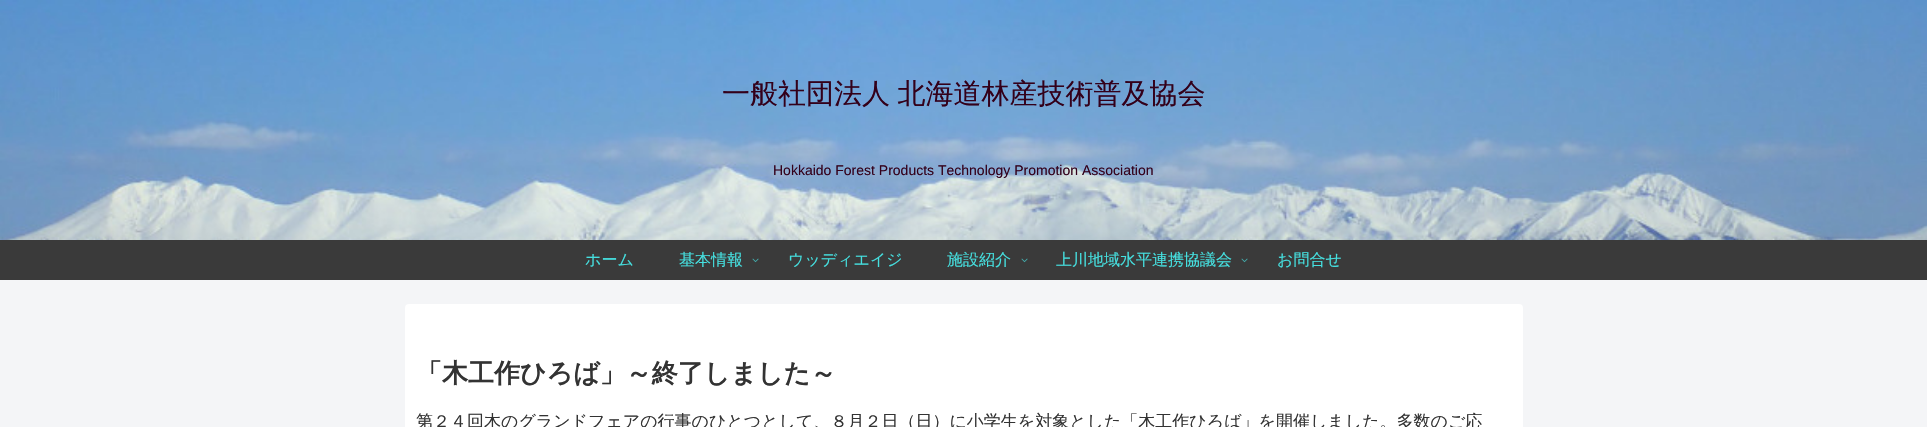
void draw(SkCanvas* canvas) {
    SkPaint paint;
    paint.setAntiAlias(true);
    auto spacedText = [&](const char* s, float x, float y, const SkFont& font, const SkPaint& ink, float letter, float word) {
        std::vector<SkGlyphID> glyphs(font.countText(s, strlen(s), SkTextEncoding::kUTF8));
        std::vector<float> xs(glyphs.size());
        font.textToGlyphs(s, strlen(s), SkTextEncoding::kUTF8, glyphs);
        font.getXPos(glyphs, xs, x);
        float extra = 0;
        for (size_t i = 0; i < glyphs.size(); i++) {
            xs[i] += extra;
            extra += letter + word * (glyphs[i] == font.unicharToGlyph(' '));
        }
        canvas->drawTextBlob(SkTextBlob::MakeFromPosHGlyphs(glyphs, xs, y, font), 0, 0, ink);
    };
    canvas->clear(0xFFF4F5F7);
    canvas->drawImageRect(SkImages::DeferredFromEncodedData(SkData::MakeFromFileName("img1.png")), SkRect::MakeXYWH(0, 0, 1927, 240), SkSamplingOptions());
    SkFont font1(fontMgr->matchFamilyStyle("WenQuanYi Zen Hei", SkFontStyle(500, SkFontStyle::kNormal_Width, SkFontStyle::kUpright_Slant)), 28);
    font1.setSubpixel(true);
    paint.setColor(0xFF33001A);
    spacedText("一般社団法人 北海道林産技術普及協会", 722, 103, font1, paint, 0, -1);
    SkFont font2(fontMgr->matchFamilyStyle("Liberation Sans", SkFontStyle::Normal()), 14);
    font2.setSubpixel(true);
    canvas->drawString("Hokkaido Forest Products Technology Promotion Association", 773, 175, font2, paint);
    paint.setColor(0xFF3A3A3A);
    canvas->drawRect(SkRect::MakeXYWH(0, 240, 1927, 40), paint);
    SkFont font3(fontMgr->matchFamilyStyle("WenQuanYi Zen Hei", SkFontStyle(500, SkFontStyle::kNormal_Width, SkFontStyle::kUpright_Slant)), 16);
    font3.setSubpixel(true);
    paint.setColor(0xFF45E0E0);
    canvas->drawString("ホーム", 585, 265, font3, paint);
    canvas->drawString("基本情報", 679, 265, font3, paint);
    canvas->drawImageRect(SkImages::DeferredFromEncodedData(SkData::MakeFromFileName("img2.png")), SkRect::MakeXYWH(752, 258, 7, 5), SkSamplingOptions());
    canvas->drawString("ウッディエイジ", 788, 265, font3, paint);
    canvas->drawString("施設紹介", 947, 265, font3, paint);
    canvas->drawImageRect(SkImages::DeferredFromEncodedData(SkData::MakeFromFileName("img2.png")), SkRect::MakeXYWH(1021, 258, 7, 5), SkSamplingOptions());
    canvas->drawString("上川地域水平連携協議会", 1056, 265, font3, paint);
    canvas->drawImageRect(SkImages::DeferredFromEncodedData(SkData::MakeFromFileName("img2.png")), SkRect::MakeXYWH(1241, 258, 7, 5), SkSamplingOptions());
    canvas->drawString("お問合せ", 1277, 265, font3, paint);
    paint.setColor(0xFFFFFFFF);
    canvas->drawRoundRect(SkRect::MakeXYWH(405, 304, 1118, 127), 4, 4, paint);
    SkFont font4(fontMgr->matchFamilyStyle("WenQuanYi Zen Hei", SkFontStyle::Bold()), 26);
    font4.setSubpixel(true);
    paint.setColor(0xFF333333);
    canvas->drawString("「木工作ひろば」～終了しました～", 416, 382, font4, paint);
    SkFont font5(fontMgr->matchFamilyStyle("WenQuanYi Zen Hei", SkFontStyle(500, SkFontStyle::kNormal_Width, SkFontStyle::kUpright_Slant)), 17);
    font5.setSubpixel(true);
    canvas->drawString("第２４回木のグランドフェアの行事のひとつとして、８月２日（日）に小学生を対象とした「木工作ひろば」を開催しました。多数のご応", 416, 427, font5, paint);
}
